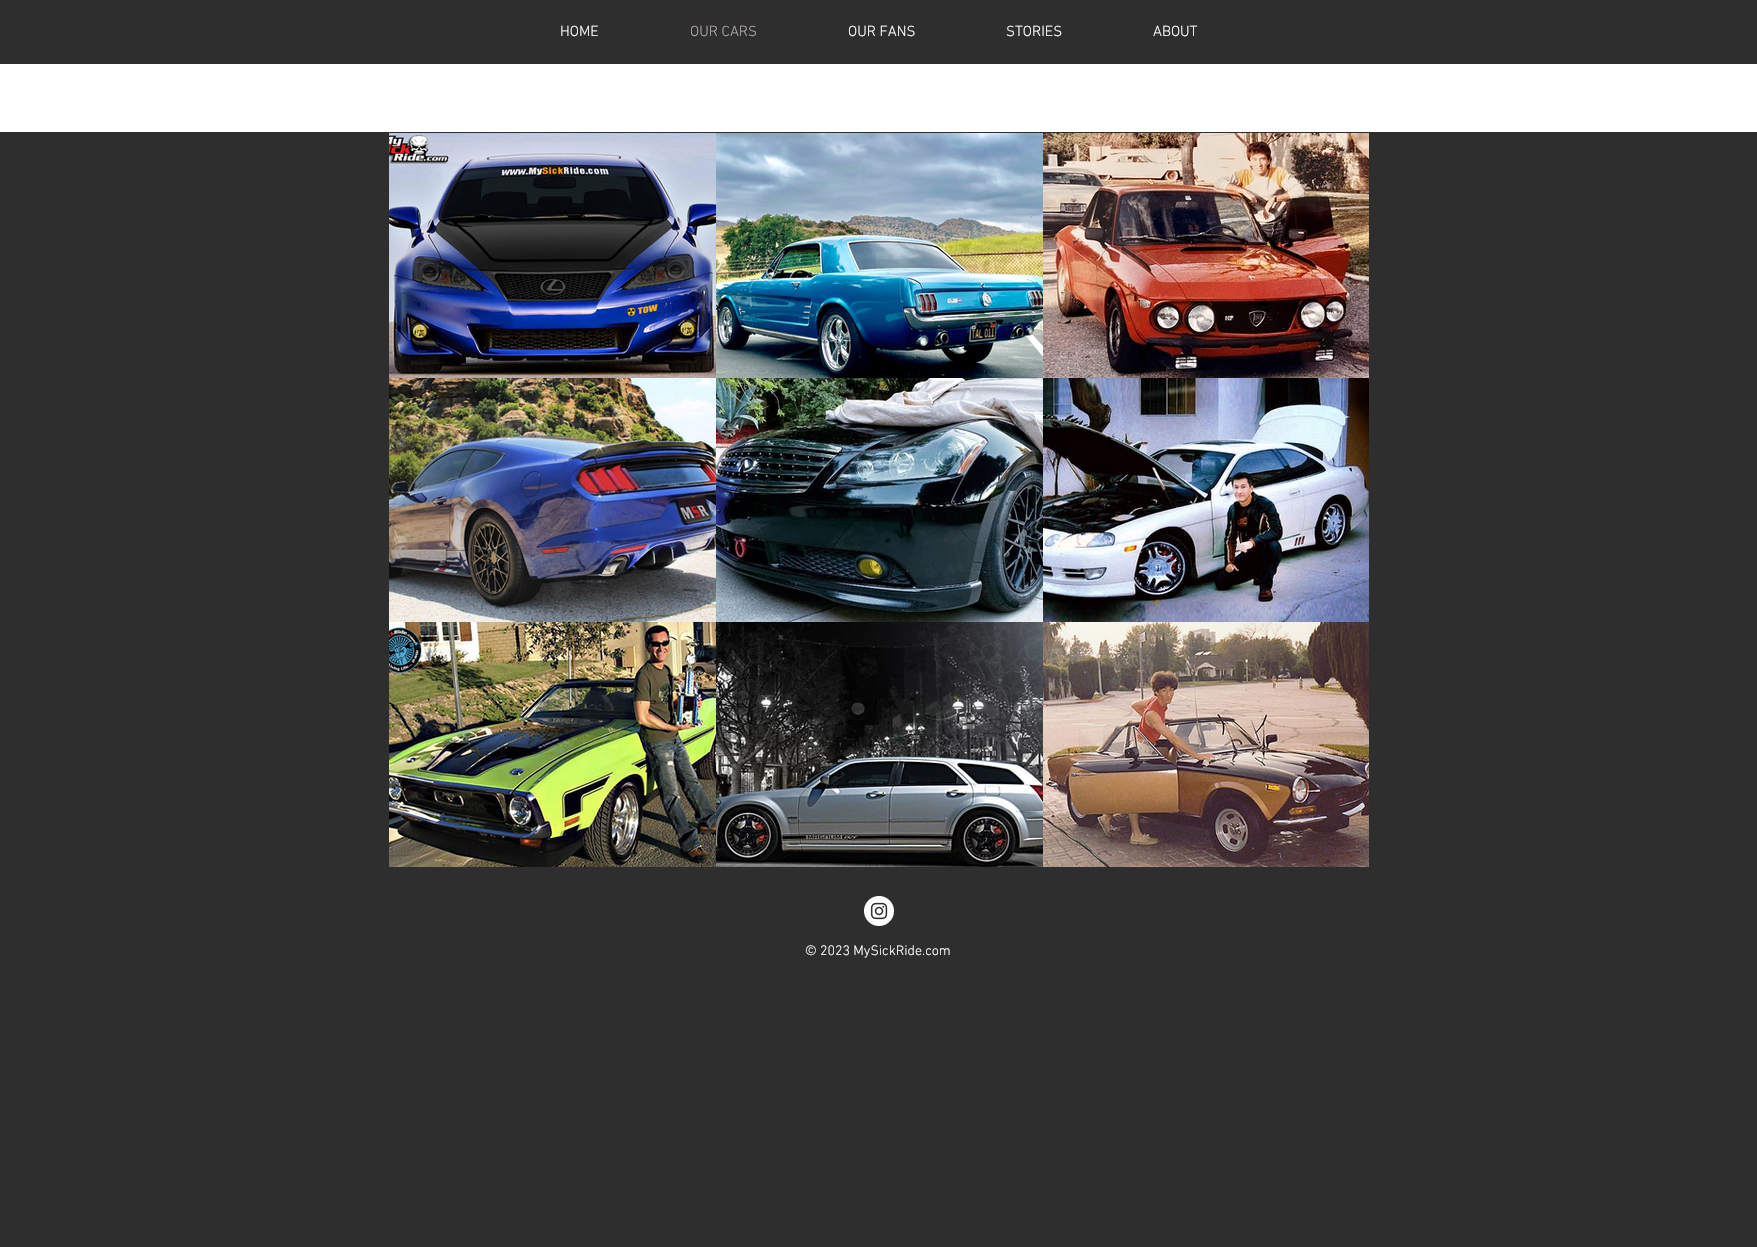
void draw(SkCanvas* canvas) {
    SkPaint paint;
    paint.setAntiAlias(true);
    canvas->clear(0xFF2F2E2E);
    SkFont font1(fontMgr->matchFamilyStyle("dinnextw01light", SkFontStyle(300, SkFontStyle::kNormal_Width, SkFontStyle::kUpright_Slant)), 15);
    font1.setSubpixel(true);
    paint.setColor(0xFFFFFFFF);
    canvas->drawString("HOME", 560, 36, font1, paint);
    paint.setColor(0xFFB0AAA9);
    canvas->drawString("OUR CARS", 690, 36, font1, paint);
    paint.setColor(0xFFFFFFFF);
    canvas->drawString("OUR FANS", 848, 36, font1, paint);
    canvas->drawString("STORIES", 1006, 36, font1, paint);
    canvas->drawString("ABOUT", 1153, 36, font1, paint);
    canvas->drawRect(SkRect::MakeXYWH(0, 64, 1757, 68), paint);
    canvas->drawImageRect(SkImages::DeferredFromEncodedData(SkData::MakeFromFileName("img1.png")), SkRect::MakeXYWH(389, 133, 327, 245), SkSamplingOptions());
    canvas->drawImageRect(SkImages::DeferredFromEncodedData(SkData::MakeFromFileName("img2.png")), SkRect::MakeXYWH(716, 133, 327, 245), SkSamplingOptions());
    canvas->drawImageRect(SkImages::DeferredFromEncodedData(SkData::MakeFromFileName("img3.png")), SkRect::MakeXYWH(1043, 133, 326, 245), SkSamplingOptions());
    canvas->drawImageRect(SkImages::DeferredFromEncodedData(SkData::MakeFromFileName("img4.png")), SkRect::MakeXYWH(389, 378, 327, 244), SkSamplingOptions());
    canvas->drawImageRect(SkImages::DeferredFromEncodedData(SkData::MakeFromFileName("img5.png")), SkRect::MakeXYWH(716, 378, 327, 244), SkSamplingOptions());
    canvas->drawImageRect(SkImages::DeferredFromEncodedData(SkData::MakeFromFileName("img6.png")), SkRect::MakeXYWH(1043, 378, 326, 244), SkSamplingOptions());
    canvas->drawImageRect(SkImages::DeferredFromEncodedData(SkData::MakeFromFileName("img7.png")), SkRect::MakeXYWH(389, 622, 327, 245), SkSamplingOptions());
    canvas->drawImageRect(SkImages::DeferredFromEncodedData(SkData::MakeFromFileName("img8.png")), SkRect::MakeXYWH(716, 622, 327, 245), SkSamplingOptions());
    canvas->drawImageRect(SkImages::DeferredFromEncodedData(SkData::MakeFromFileName("img9.png")), SkRect::MakeXYWH(1043, 622, 326, 245), SkSamplingOptions());
    canvas->drawImageRect(SkImages::DeferredFromEncodedData(SkData::MakeFromFileName("img10.png")), SkRect::MakeXYWH(864, 896, 30, 30), SkSamplingOptions());
    SkFont font2(fontMgr->matchFamilyStyle("dinnextw01light", SkFontStyle(300, SkFontStyle::kNormal_Width, SkFontStyle::kUpright_Slant)), 14);
    font2.setSubpixel(true);
    canvas->drawString("© 2023 MySickRide.com", 805, 955, font2, paint);
}
